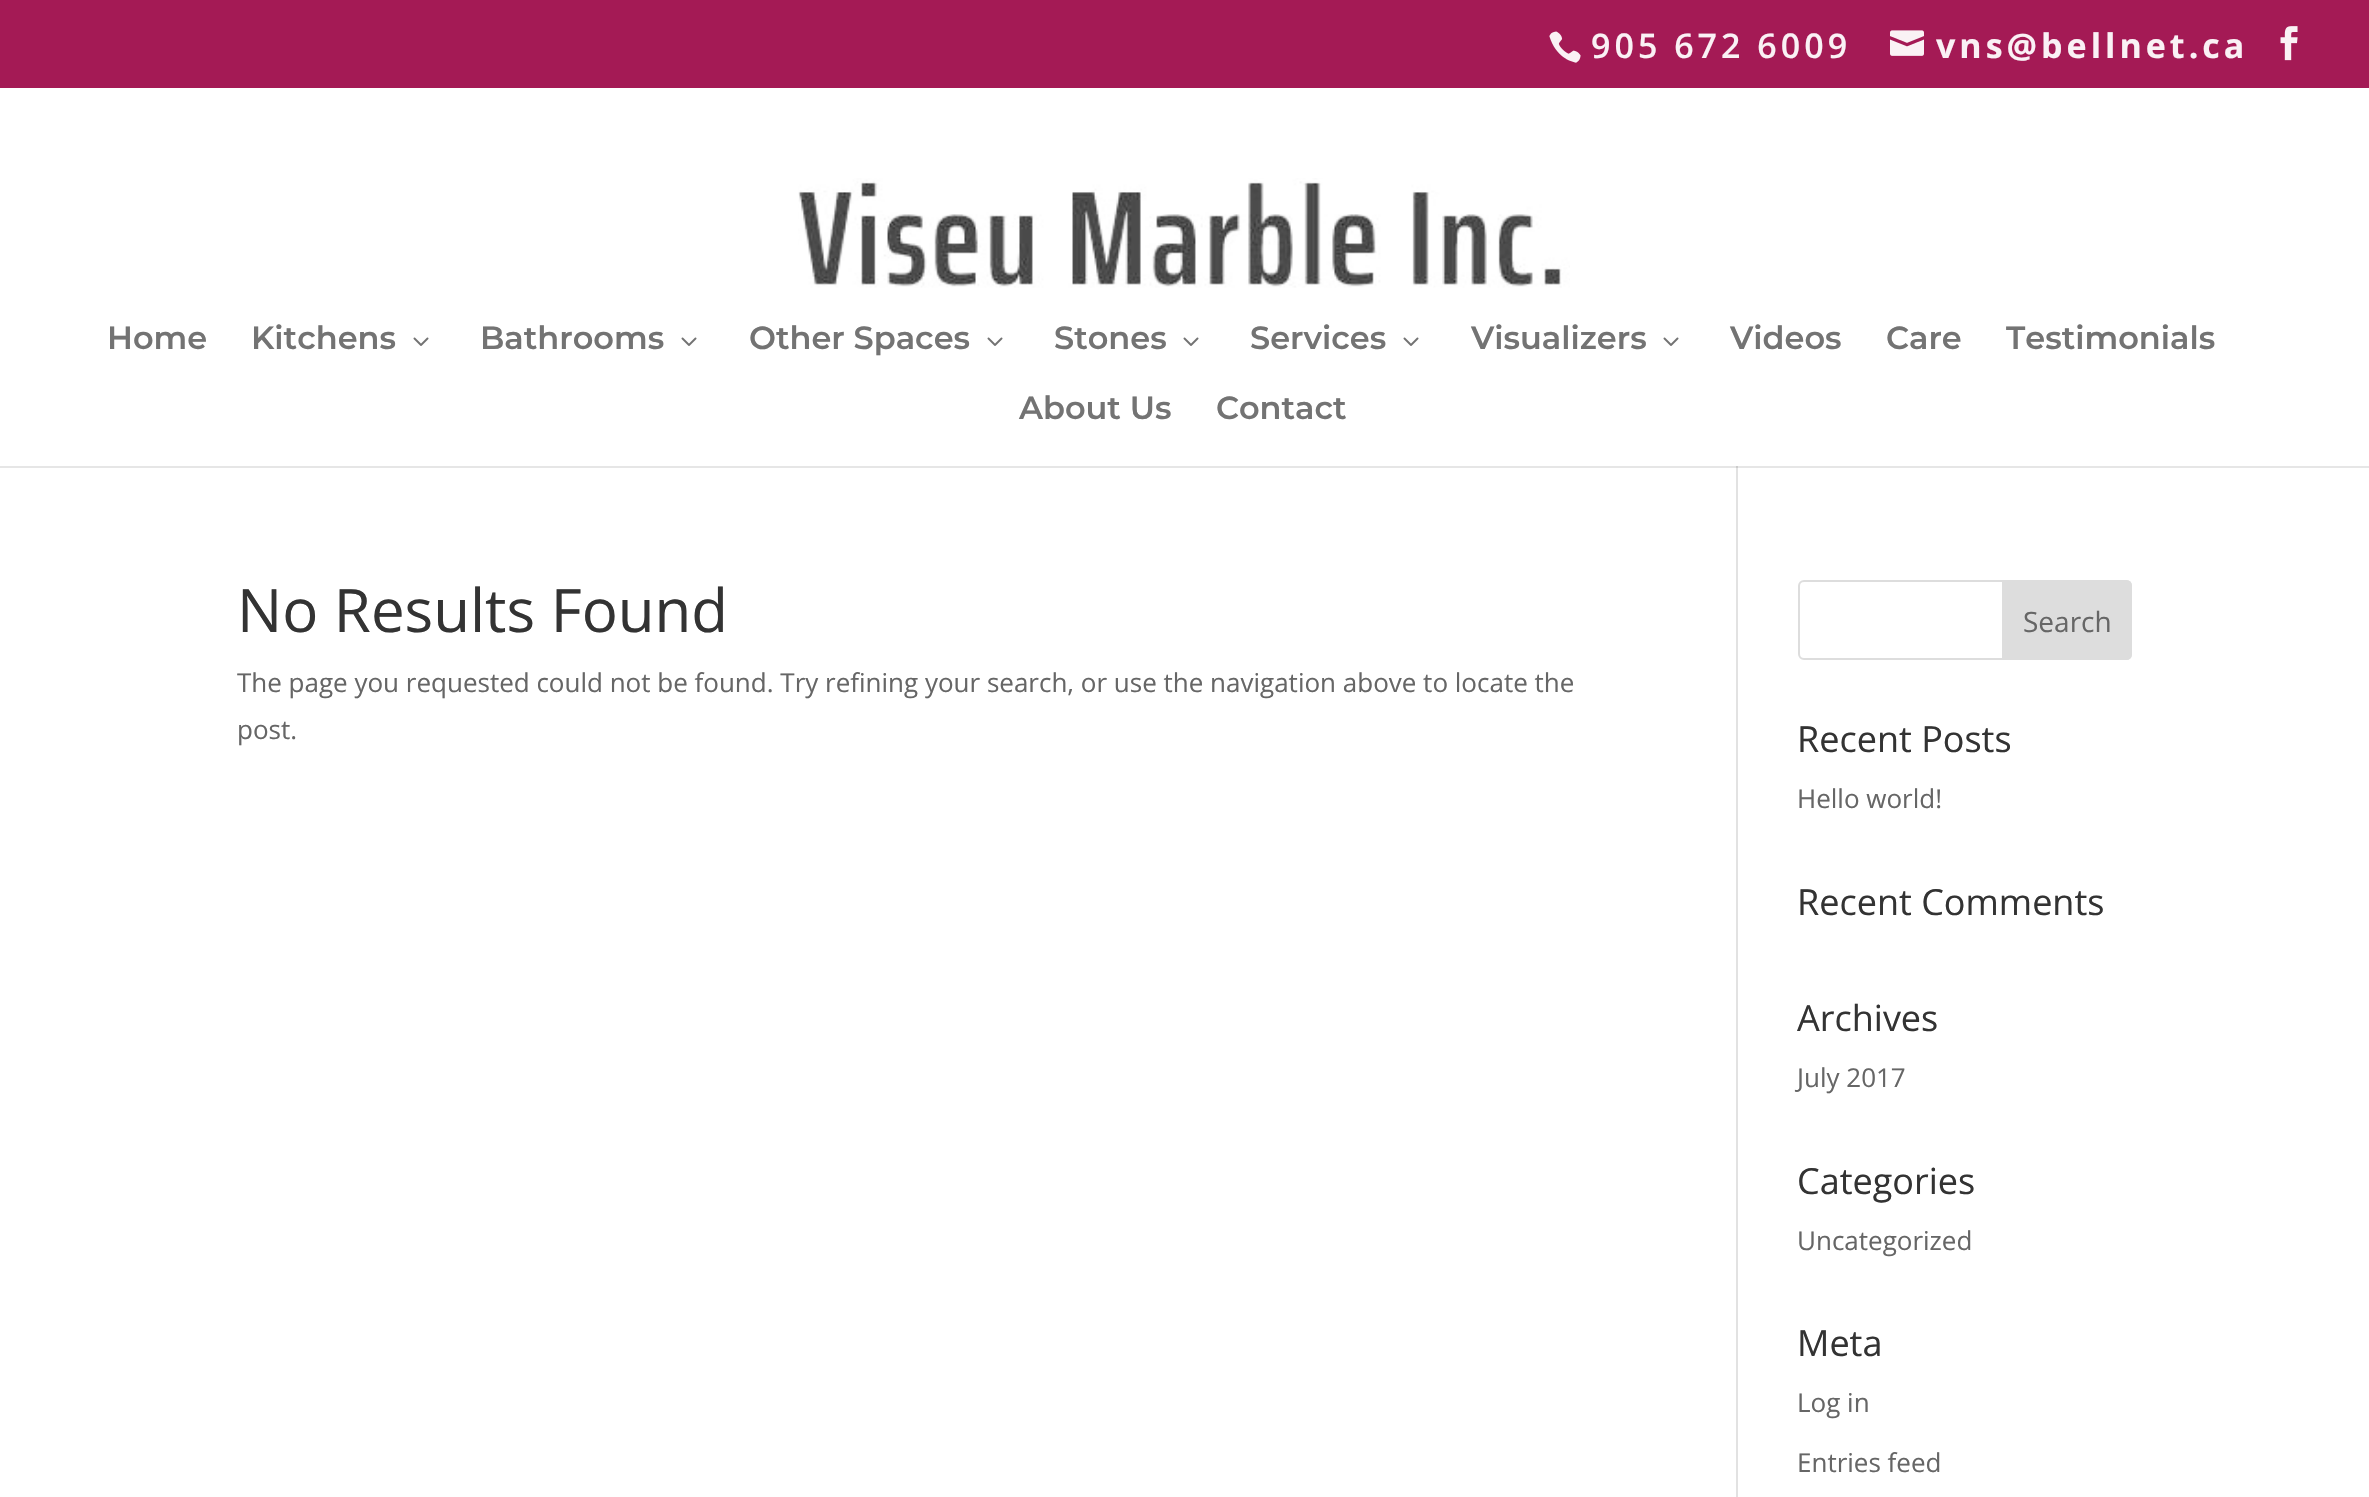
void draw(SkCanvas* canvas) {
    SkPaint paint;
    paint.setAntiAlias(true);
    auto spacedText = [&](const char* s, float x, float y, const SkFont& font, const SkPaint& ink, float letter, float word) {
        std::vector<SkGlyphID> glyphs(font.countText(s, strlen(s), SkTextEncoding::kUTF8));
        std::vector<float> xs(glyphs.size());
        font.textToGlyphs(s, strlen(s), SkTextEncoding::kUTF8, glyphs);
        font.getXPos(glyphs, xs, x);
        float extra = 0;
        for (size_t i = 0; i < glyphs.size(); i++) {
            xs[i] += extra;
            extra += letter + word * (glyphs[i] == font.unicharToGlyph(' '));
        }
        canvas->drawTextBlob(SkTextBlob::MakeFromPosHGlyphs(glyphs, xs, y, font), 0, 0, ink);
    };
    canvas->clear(0xFFFFFFFF);
    paint.setColor(0xFFE6E6E6);
    canvas->drawRect(SkRect::MakeXYWH(0, 466, 2369, 2), paint);
    paint.setColor(0xFFA41A55);
    canvas->drawRect(SkRect::MakeXYWH(0, 0, 2369, 88), paint);
    canvas->drawImageRect(SkImages::DeferredFromEncodedData(SkData::MakeFromFileName("img1.png")), SkRect::MakeXYWH(1549, 31, 32, 32), SkSamplingOptions());
    SkFont font1(fontMgr->matchFamilyStyle("Open Sans", SkFontStyle(600, SkFontStyle::kNormal_Width, SkFontStyle::kUpright_Slant)), 34);
    font1.setSubpixel(true);
    paint.setColor(0xFFFAF1F5);
    spacedText("905 672 6009", 1591, 58, font1, paint, 4, 0);
    canvas->drawImageRect(SkImages::DeferredFromEncodedData(SkData::MakeFromFileName("img2.png")), SkRect::MakeXYWH(1890, 30, 34, 26), SkSamplingOptions());
    SkFont font2(fontMgr->matchFamilyStyle("Open Sans", SkFontStyle::Bold()), 34);
    font2.setSubpixel(true);
    spacedText("vns@bellnet.ca", 1936, 58, font2, paint, 4, 0);
    canvas->drawImageRect(SkImages::DeferredFromEncodedData(SkData::MakeFromFileName("img3.png")), SkRect::MakeXYWH(2280, 26, 18, 35), SkSamplingOptions());
    paint.setColor(0xFFE2E2E2);
    canvas->drawRect(SkRect::MakeXYWH(1736, 464, 2, 1033), paint);
    paint.setColor(0xFFFFFFFF);
    canvas->drawRect(SkRect::MakeXYWH(1736, 464, 2, 2), paint);
    canvas->drawImageRect(SkImages::DeferredFromEncodedData(SkData::MakeFromFileName("img4.png")), SkRect::MakeXYWH(798, 178, 772, 110), SkSamplingOptions());
    SkFont font3(fontMgr->matchFamilyStyle("Montserrat", SkFontStyle(600, SkFontStyle::kNormal_Width, SkFontStyle::kUpright_Slant)), 32);
    font3.setSubpixel(true);
    paint.setColor(0xFF737373);
    canvas->drawString("Home", 107, 349, font3, paint);
    canvas->drawString("Kitchens", 251, 349, font3, paint);
    canvas->drawImageRect(SkImages::DeferredFromEncodedData(SkData::MakeFromFileName("img5.png")), SkRect::MakeXYWH(413, 337, 16, 9), SkSamplingOptions());
    canvas->drawString("Bathrooms", 480, 349, font3, paint);
    canvas->drawImageRect(SkImages::DeferredFromEncodedData(SkData::MakeFromFileName("img5.png")), SkRect::MakeXYWH(681, 337, 16, 9), SkSamplingOptions());
    canvas->drawString("Other Spaces", 749, 349, font3, paint);
    canvas->drawImageRect(SkImages::DeferredFromEncodedData(SkData::MakeFromFileName("img5.png")), SkRect::MakeXYWH(987, 337, 16, 9), SkSamplingOptions());
    canvas->drawString("Stones", 1054, 349, font3, paint);
    canvas->drawImageRect(SkImages::DeferredFromEncodedData(SkData::MakeFromFileName("img5.png")), SkRect::MakeXYWH(1183, 337, 16, 9), SkSamplingOptions());
    canvas->drawString("Services", 1250, 349, font3, paint);
    canvas->drawImageRect(SkImages::DeferredFromEncodedData(SkData::MakeFromFileName("img5.png")), SkRect::MakeXYWH(1403, 337, 16, 9), SkSamplingOptions());
    canvas->drawString("Visualizers", 1471, 349, font3, paint);
    canvas->drawImageRect(SkImages::DeferredFromEncodedData(SkData::MakeFromFileName("img5.png")), SkRect::MakeXYWH(1663, 337, 16, 9), SkSamplingOptions());
    canvas->drawString("Videos", 1730, 349, font3, paint);
    canvas->drawString("Care", 1886, 349, font3, paint);
    canvas->drawString("Testimonials", 2006, 349, font3, paint);
    canvas->drawString("About Us", 1019, 419, font3, paint);
    canvas->drawString("Contact", 1216, 419, font3, paint);
    paint.setColor(0xFFCBCBCB);
    canvas->drawRect(SkRect::MakeXYWH(1736, 466, 2, 2), paint);
    SkFont font4(fontMgr->matchFamilyStyle("Open Sans", SkFontStyle::Normal()), 60);
    font4.setSubpixel(true);
    paint.setColor(0xFF333333);
    canvas->drawString("No Results Found", 237, 632, font4, paint);
    SkFont font5(fontMgr->matchFamilyStyle("Open Sans", SkFontStyle::Normal()), 26);
    font5.setSubpixel(true);
    paint.setColor(0xFF666666);
    canvas->drawString("The page you requested could not be found. Try refining your search, or use the navigation above to locate the", 237, 692, font5, paint);
    canvas->drawString("post.", 237, 739, font5, paint);
    paint.setStyle(SkPaint::kStroke_Style);
    paint.setStrokeWidth(2);
    paint.setColor(0xFFDDDDDD);
    canvas->drawRoundRect(SkRect::MakeXYWH(1799, 581, 332, 78), 5, 5, paint);
    paint.setStyle(SkPaint::kFill_Style);
    canvas->drawPath(SkPathBuilder().moveTo(2003, 581).lineTo(2126, 581).cubicTo(2129, 581, 2131, 583, 2131, 586).lineTo(2131, 654).cubicTo(2131, 657, 2129, 659, 2126, 659).lineTo(2003, 659).close().detach(), paint);
    paint.setStyle(SkPaint::kStroke_Style);
    canvas->drawPath(SkPathBuilder().moveTo(2003, 581).lineTo(2126, 581).cubicTo(2129, 581, 2131, 583, 2131, 586).lineTo(2131, 654).cubicTo(2131, 657, 2129, 659, 2126, 659).lineTo(2003, 659).close().detach(), paint);
    SkFont font6(fontMgr->matchFamilyStyle("Open Sans", SkFontStyle::Normal()), 28);
    font6.setSubpixel(true);
    paint.setStyle(SkPaint::kFill_Style);
    paint.setColor(0xFF666666);
    canvas->drawString("Search", 2023, 632, font6, paint);
    SkFont font7(fontMgr->matchFamilyStyle("Open Sans", SkFontStyle::Normal()), 36);
    font7.setSubpixel(true);
    paint.setColor(0xFF333333);
    canvas->drawString("Recent Posts", 1797, 752, font7, paint);
    paint.setColor(0xFF666666);
    canvas->drawString("Hello world!", 1797, 808, font5, paint);
    paint.setColor(0xFF333333);
    canvas->drawString("Recent Comments", 1797, 915, font7, paint);
    canvas->drawString("Archives", 1797, 1031, font7, paint);
    paint.setColor(0xFF666666);
    canvas->drawString("July 2017", 1797, 1087, font5, paint);
    paint.setColor(0xFF333333);
    canvas->drawString("Categories", 1797, 1194, font7, paint);
    paint.setColor(0xFF666666);
    canvas->drawString("Uncategorized", 1797, 1250, font5, paint);
    paint.setColor(0xFF333333);
    canvas->drawString("Meta", 1797, 1356, font7, paint);
    paint.setColor(0xFF666666);
    canvas->drawString("Log in", 1797, 1412, font5, paint);
    canvas->drawString("Entries feed", 1797, 1472, font5, paint);
}
